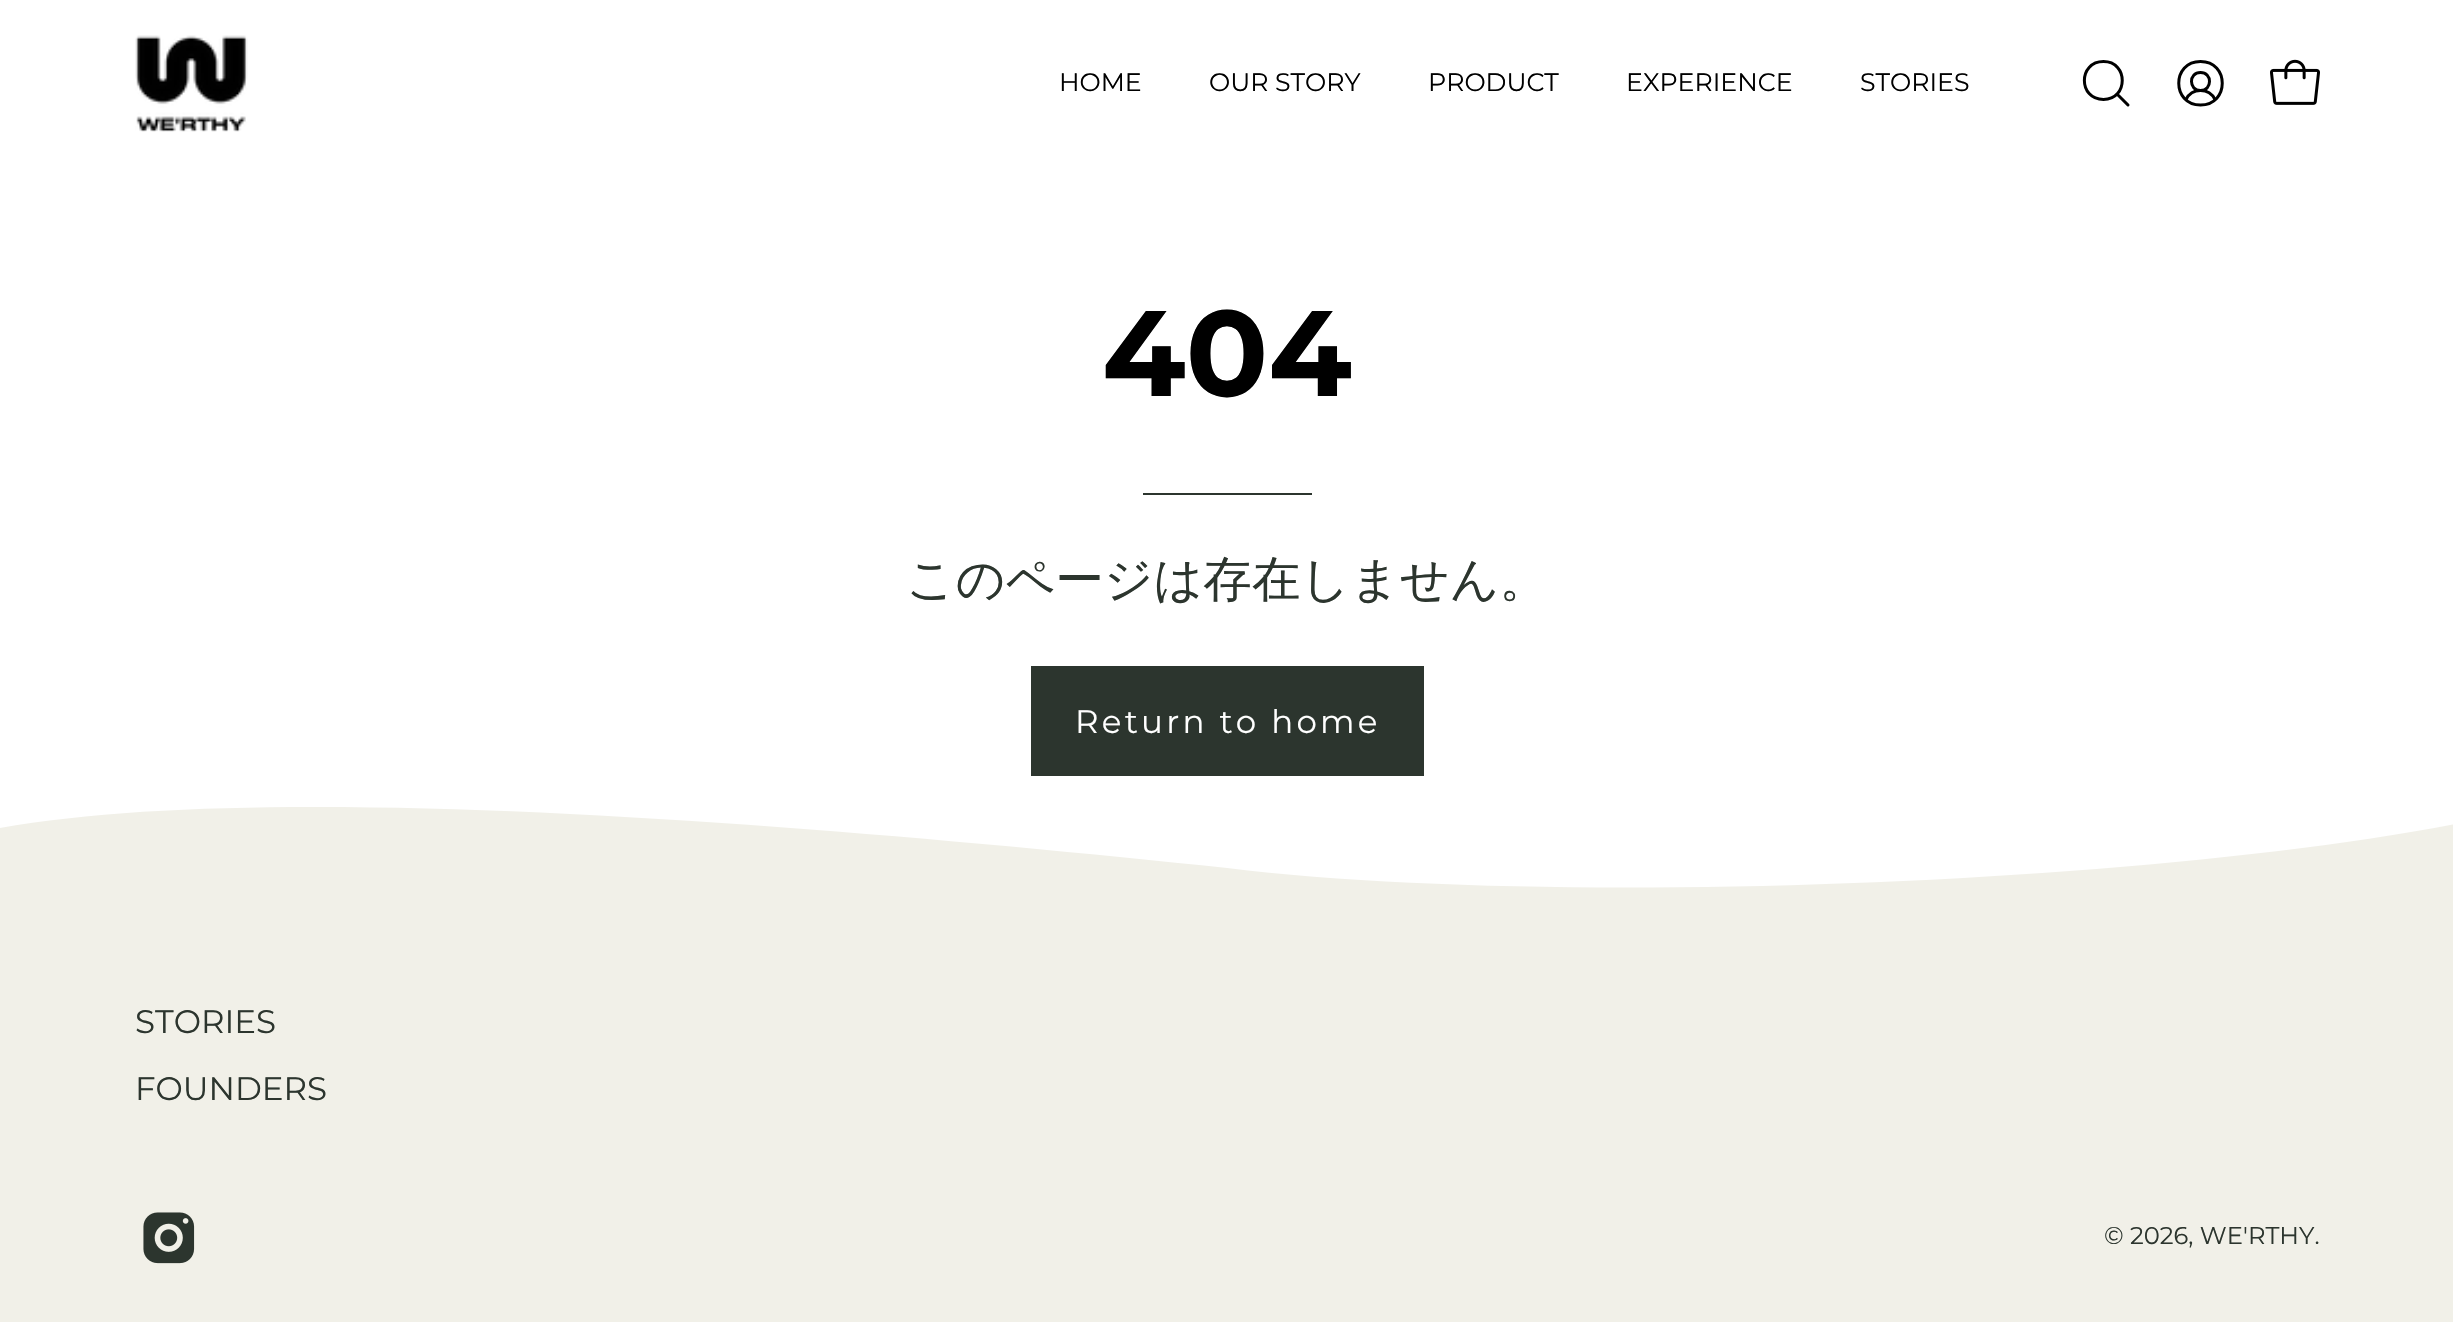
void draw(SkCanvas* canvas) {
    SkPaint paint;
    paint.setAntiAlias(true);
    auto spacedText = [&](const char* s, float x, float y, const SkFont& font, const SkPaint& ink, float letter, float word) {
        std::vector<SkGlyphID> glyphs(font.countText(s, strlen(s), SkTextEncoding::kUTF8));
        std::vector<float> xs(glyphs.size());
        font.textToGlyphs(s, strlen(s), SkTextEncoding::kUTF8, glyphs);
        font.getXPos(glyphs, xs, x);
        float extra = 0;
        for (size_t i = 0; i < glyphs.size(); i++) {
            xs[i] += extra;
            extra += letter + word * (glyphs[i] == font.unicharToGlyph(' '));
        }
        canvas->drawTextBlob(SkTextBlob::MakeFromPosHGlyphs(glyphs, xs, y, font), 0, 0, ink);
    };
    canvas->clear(0xFFF1F0E8);
    paint.setColor(0xFFFFFFFF);
    canvas->drawRect(SkRect::MakeXYWH(0, 0, 2453, 888), paint);
    canvas->drawImageRect(SkImages::DeferredFromEncodedData(SkData::MakeFromFileName("img1.png")), SkRect::MakeXYWH(135, 35, 113, 97), SkSamplingOptions());
    SkFont font1(fontMgr->matchFamilyStyle("Montserrat", SkFontStyle::Normal()), 25.25f);
    font1.setSubpixel(true);
    paint.setColor(0xFF000000);
    canvas->drawString("HOME", 1059, 91, font1, paint);
    canvas->drawString("OUR STORY", 1209, 91, font1, paint);
    canvas->drawString("PRODUCT", 1428, 91, font1, paint);
    canvas->drawString("EXPERIENCE", 1626, 91, font1, paint);
    canvas->drawString("STORIES", 1860, 91, font1, paint);
    paint.setStyle(SkPaint::kStroke_Style);
    paint.setStrokeWidth(3);
    paint.setStrokeCap(SkPaint::kRound_Cap);
    paint.setStrokeJoin(SkPaint::kRound_Join);
    canvas->drawPath(SkPathBuilder().moveTo(2103.5f, 99.5f).cubicTo(2128.5f, 99.5f, 2128.5f, 61.5f, 2103.5f, 61.5f).cubicTo(2078, 61.5f, 2078, 99.5f, 2103.5f, 99.5f).close().moveTo(2117, 94).lineTo(2128, 105).detach(), paint);
    canvas->drawPath(SkPathBuilder().moveTo(2200.5f, 105).cubicTo(2229.5f, 105, 2229.5f, 61.5f, 2200.5f, 61.5f).cubicTo(2171.5f, 61.5f, 2171.5f, 105, 2200.5f, 105).close().moveTo(2200.5f, 90.5f).cubicTo(2212.5f, 90.5f, 2212.5f, 72.5f, 2200.5f, 72.5f).cubicTo(2188.5f, 72.5f, 2188.5f, 90.5f, 2200.5f, 90.5f).close().moveTo(2186, 99.5f).cubicTo(2192, 87.5f, 2209, 87.5f, 2215, 99.5f).detach(), paint);
    canvas->drawImageRect(SkImages::DeferredFromEncodedData(SkData::MakeFromFileName("img2.png")), SkRect::MakeXYWH(2270, 59, 50, 46), SkSamplingOptions());
    SkFont font2(fontMgr->matchFamilyStyle("Montserrat", SkFontStyle::Bold()), 121.5f);
    font2.setSubpixel(true);
    paint.setStyle(SkPaint::kFill_Style);
    canvas->drawString("404", 1102, 396, font2, paint);
    paint.setColor(0xFF2C352E);
    canvas->drawRect(SkRect::MakeXYWH(1143, 493, 169, 2), paint);
    SkFont font3(fontMgr->matchFamilyStyle("WenQuanYi Zen Hei", SkFontStyle(500, SkFontStyle::kNormal_Width, SkFontStyle::kUpright_Slant)), 48.6f);
    font3.setSubpixel(true);
    canvas->drawString("このページは存在しません。", 906, 596, font3, paint);
    canvas->drawRect(SkRect::MakeXYWH(1031, 666, 393, 110), paint);
    SkFont font4(fontMgr->matchFamilyStyle("Montserrat", SkFontStyle::Normal()), 32.5f);
    font4.setSubpixel(true);
    paint.setColor(0xFFFFFFFF);
    spacedText("Return to home", 1075, 733, font4, paint, 3.25f, 0);
    paint.setColor(0xFFF1F0E8);
    canvas->drawPath(SkPathBuilder().moveTo(0, 828).cubicTo(281, 778, 842, 828, 1227, 868).cubicTo(1543, 907, 2139, 885, 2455, 824).lineTo(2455, 936).lineTo(0, 936).detach(), paint);
    paint.setColor(0xFF2C352E);
    canvas->drawString("STORIES", 135, 1033, font4, paint);
    canvas->drawString("FOUNDERS", 135, 1100, font4, paint);
    canvas->drawImageRect(SkImages::DeferredFromEncodedData(SkData::MakeFromFileName("img3.png")), SkRect::MakeXYWH(143, 1212, 52, 52), SkSamplingOptions());
    SkFont font5(fontMgr->matchFamilyStyle("Montserrat", SkFontStyle::Normal()), 24.25f);
    font5.setSubpixel(true);
    canvas->drawString("© 2026, WE'RTHY.", 2104, 1244, font5, paint);
}
